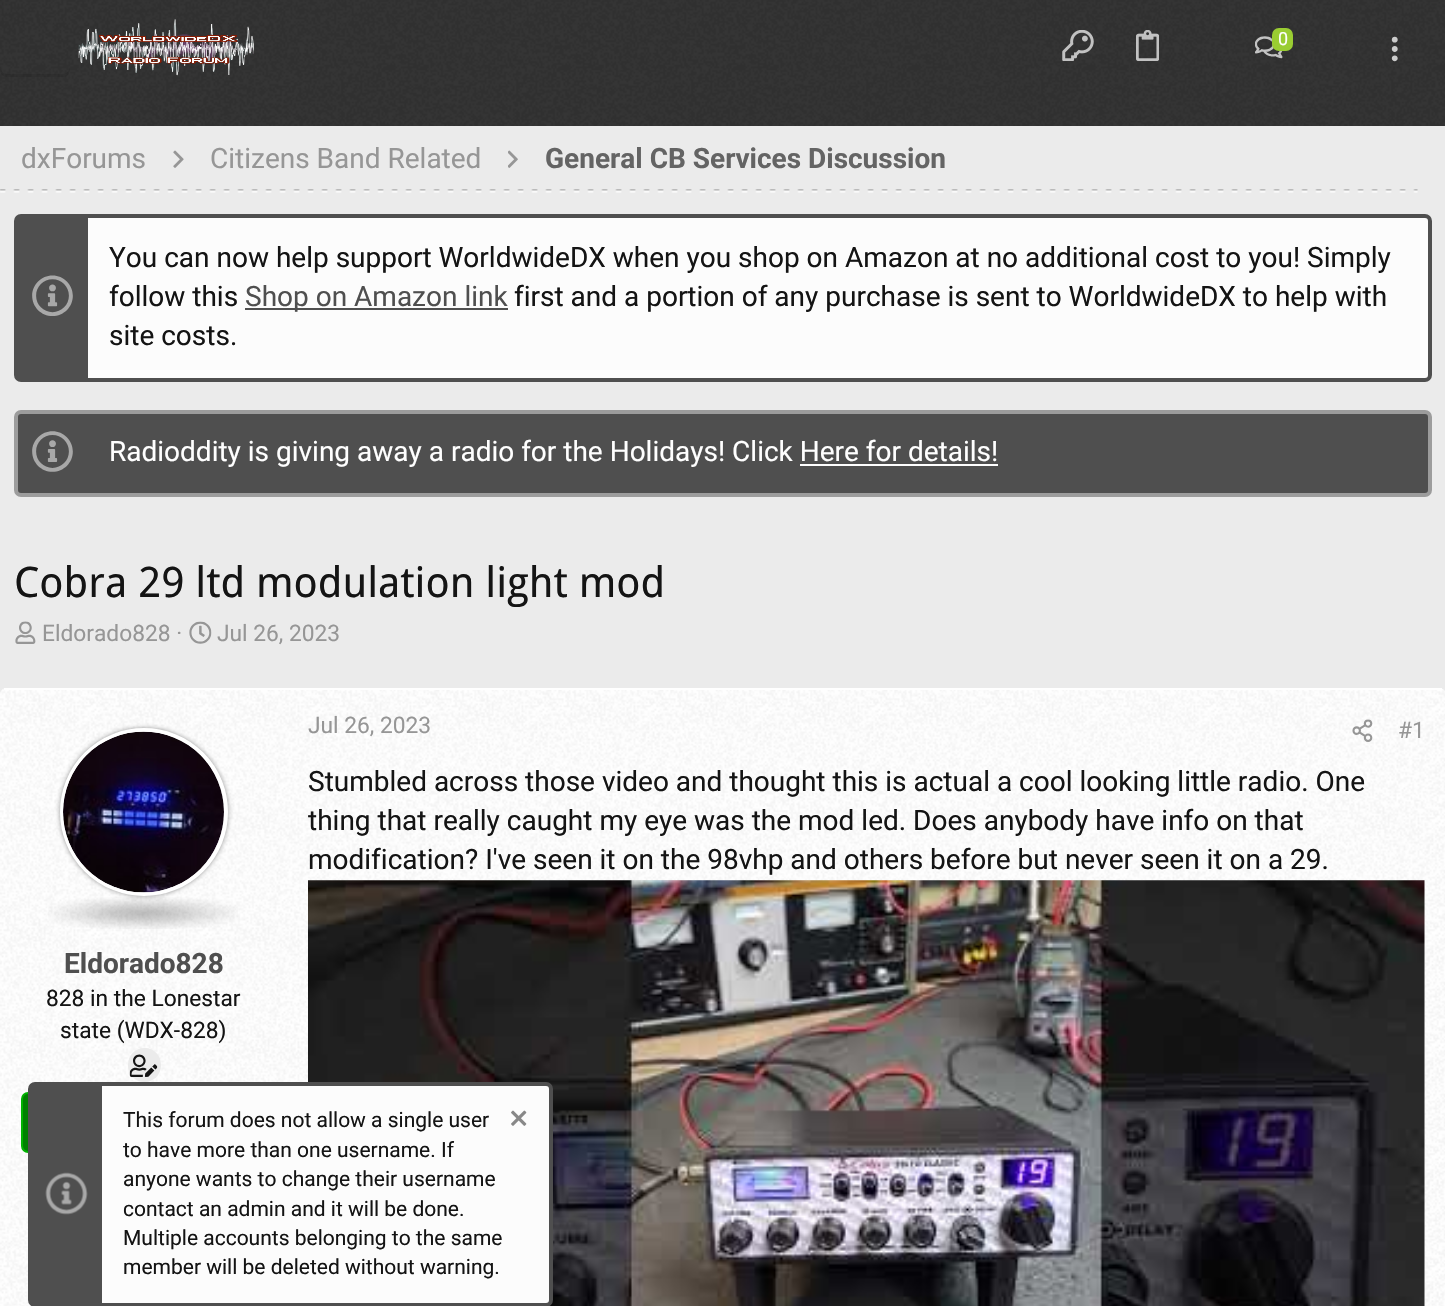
void draw(SkCanvas* canvas) {
    SkPaint paint;
    paint.setAntiAlias(true);
    canvas->clear(0xFF313131);
    canvas->drawImageRect(SkImages::DeferredFromEncodedData(SkData::MakeFromFileName("img1.png")), SkRect::MakeXYWH(0, 0, 1445, 126), SkSamplingOptions());
    canvas->drawImageRect(SkImages::DeferredFromEncodedData(SkData::MakeFromFileName("img2.png")), SkRect::MakeXYWH(78, 19, 176, 57), SkSamplingOptions());
    canvas->drawImageRect(SkImages::DeferredFromEncodedData(SkData::MakeFromFileName("img3.png")), SkRect::MakeXYWH(1062, 30, 32, 31), SkSamplingOptions());
    canvas->drawImageRect(SkImages::DeferredFromEncodedData(SkData::MakeFromFileName("img4.png")), SkRect::MakeXYWH(1136, 30, 23, 31), SkSamplingOptions());
    canvas->drawImageRect(SkImages::DeferredFromEncodedData(SkData::MakeFromFileName("img5.png")), SkRect::MakeXYWH(1255, 36, 28, 23), SkSamplingOptions());
    paint.setColor(0xFF9ACD32);
    canvas->drawRoundRect(SkRect::MakeXYWH(1272, 28, 21, 23), 7, 7, paint);
    SkFont font1(fontMgr->matchFamilyStyle("Roboto", SkFontStyle::Normal()), 18);
    font1.setSubpixel(true);
    paint.setColor(0xFFFFFFFF);
    canvas->drawString("0", 1278, 45, font1, paint);
    canvas->drawImageRect(SkImages::DeferredFromEncodedData(SkData::MakeFromFileName("img6.png")), SkRect::MakeXYWH(1391, 36, 7, 26), SkSamplingOptions());
    paint.setColor(0x1A000000);
    canvas->drawPath(SkPathBuilder().moveTo(0, 66).cubicTo(0, 79, 5, 77, 16, 77).lineTo(54, 77).cubicTo(65, 77, 70, 79, 70, 66).cubicTo(70, 70, 67, 74, 63, 74).lineTo(7, 74).cubicTo(3, 74, 0, 70, 0, 66).close().detach(), paint);
    paint.setColor(0xFFEBEBEB);
    canvas->drawRect(SkRect::MakeXYWH(0, 126, 1445, 569), paint);
    canvas->drawImageRect(SkImages::DeferredFromEncodedData(SkData::MakeFromFileName("img7.png")), SkRect::MakeXYWH(0, 189, 1418, 4), SkSamplingOptions());
    SkFont font2(fontMgr->matchFamilyStyle("Roboto", SkFontStyle::Normal()), 28);
    font2.setSubpixel(true);
    paint.setColor(0xFF969696);
    canvas->drawString("dxForums", 21, 168, font2, paint);
    canvas->drawImageRect(SkImages::DeferredFromEncodedData(SkData::MakeFromFileName("img8.png")), SkRect::MakeXYWH(173, 150, 11, 18), SkSamplingOptions());
    canvas->drawString("Citizens Band Related", 210, 168, font2, paint);
    canvas->drawImageRect(SkImages::DeferredFromEncodedData(SkData::MakeFromFileName("img9.png")), SkRect::MakeXYWH(508, 150, 10, 18), SkSamplingOptions());
    SkFont font3(fontMgr->matchFamilyStyle("Roboto", SkFontStyle::Bold()), 28);
    font3.setSubpixel(true);
    paint.setColor(0xFF646464);
    canvas->drawString("General CB Services Discussion", 545, 168, font3, paint);
    paint.setColor(0xFFFCFCFC);
    canvas->drawRoundRect(SkRect::MakeXYWH(16, 216, 1414, 164), 5, 5, paint);
    paint.setStyle(SkPaint::kStroke_Style);
    paint.setStrokeWidth(4);
    paint.setColor(0xFF4F4F4F);
    canvas->drawRoundRect(SkRect::MakeXYWH(16, 216, 1414, 164), 5, 5, paint);
    paint.setStyle(SkPaint::kFill_Style);
    canvas->drawRect(SkRect::MakeXYWH(18, 218, 70, 160), paint);
    canvas->drawImageRect(SkImages::DeferredFromEncodedData(SkData::MakeFromFileName("img10.png")), SkRect::MakeXYWH(32, 275, 41, 41), SkSamplingOptions());
    paint.setColor(0xFF141414);
    canvas->drawString("You can now help support WorldwideDX when you shop on Amazon at no additional cost to you! Simply", 109, 267, font2, paint);
    canvas->drawString("follow this", 109, 306, font2, paint);
    paint.setColor(0xFF4F4F4F);
    canvas->drawRect(SkRect::MakeXYWH(245, 308, 263, 2), paint);
    canvas->drawString("Shop on Amazon link", 245, 306, font2, paint);
    paint.setColor(0xFF141414);
    canvas->drawString("first and a portion of any purchase is sent to WorldwideDX to help with", 514, 306, font2, paint);
    canvas->drawString("site costs.", 109, 345, font2, paint);
    paint.setColor(0xFF4F4F4F);
    canvas->drawRoundRect(SkRect::MakeXYWH(16, 412, 1414, 83), 5, 5, paint);
    paint.setStyle(SkPaint::kStroke_Style);
    paint.setColor(0xFF9C9C9C);
    canvas->drawRoundRect(SkRect::MakeXYWH(16, 412, 1414, 83), 5, 5, paint);
    canvas->drawImageRect(SkImages::DeferredFromEncodedData(SkData::MakeFromFileName("img11.png")), SkRect::MakeXYWH(32, 431, 41, 41), SkSamplingOptions());
    paint.setStyle(SkPaint::kFill_Style);
    paint.setColor(0xFFFFFFFF);
    canvas->drawString("Radioddity is giving away a radio for the Holidays! Click Here for details!", 109, 461, font2, paint);
    canvas->drawRect(SkRect::MakeXYWH(800, 464, 198, 2), paint);
    SkFont font4(fontMgr->matchFamilyStyle("Droid Sans", SkFontStyle::Normal()), 42);
    font4.setSubpixel(true);
    paint.setColor(0xFF141414);
    canvas->drawString("Cobra 29 ltd modulation light mod", 14, 597, font4, paint);
    canvas->drawImageRect(SkImages::DeferredFromEncodedData(SkData::MakeFromFileName("img12.png")), SkRect::MakeXYWH(15, 621, 21, 23), SkSamplingOptions());
    SkFont font5(fontMgr->matchFamilyStyle("Roboto", SkFontStyle::Normal()), 22.75f);
    font5.setSubpixel(true);
    paint.setColor(0xFF969696);
    canvas->drawString("Eldorado828 ·", 42, 641, font5, paint);
    canvas->drawImageRect(SkImages::DeferredFromEncodedData(SkData::MakeFromFileName("img13.png")), SkRect::MakeXYWH(189, 621, 23, 23), SkSamplingOptions());
    canvas->drawString("Jul 26, 2023", 217, 641, font5, paint);
    paint.setColor(0xFFFCFCFC);
    canvas->drawPath(SkPathBuilder().moveTo(7, 688).lineTo(1439, 688).cubicTo(1443, 688, 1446, 691, 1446, 695).lineTo(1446, 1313).lineTo(0, 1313).lineTo(0, 695).cubicTo(0, 691, 3, 688, 7, 688).close().detach(), paint);
    canvas->drawImageRect(SkImages::DeferredFromEncodedData(SkData::MakeFromFileName("img14.png")), SkRect::MakeXYWH(0, 688, 1445, 618), SkSamplingOptions());
    paint.setColor(0xFFFFFFFF);
    canvas->drawRect(SkRect::MakeXYWH(4, 688, 1438, 2), paint);
    paint.setColor(0xFF969696);
    canvas->drawString("Jul 26, 2023", 308, 733, font5, paint);
    canvas->drawImageRect(SkImages::DeferredFromEncodedData(SkData::MakeFromFileName("img15.png")), SkRect::MakeXYWH(1352, 719, 21, 23), SkSamplingOptions());
    canvas->drawString("#1", 1398, 738, font5, paint);
    paint.setColor(0xFF141414);
    canvas->drawString("Stumbled across those video and thought this is actual a cool looking little radio. One", 308, 791, font2, paint);
    canvas->drawString("thing that really caught my eye was the mod led. Does anybody have info on that", 308, 830, font2, paint);
    canvas->drawString("modification? I've seen it on the 98vhp and others before but never seen it on a 29.", 308, 869, font2, paint);
    canvas->drawImageRect(SkImages::DeferredFromEncodedData(SkData::MakeFromFileName("img16.png")), SkRect::MakeXYWH(308, 880, 1117, 426), SkSamplingOptions());
    canvas->drawImageRect(SkImages::DeferredFromEncodedData(SkData::MakeFromFileName("img18.png")), SkRect::MakeXYWH(48, 897, 190, 32), SkSamplingOptions());
    paint.setColor(0x66000000);
    paint.setMaskFilter(SkMaskFilter::MakeBlur(kNormal_SkBlurStyle, 2.5f));
    canvas->drawRoundRect(SkRect::MakeXYWH(60, 728, 168, 168), 84, 84, paint);
    paint.setMaskFilter(nullptr);
    paint.setStyle(SkPaint::kStroke_Style);
    paint.setColor(0xFFFFFFFF);
    canvas->drawCircle(144, 812, 82, paint);
    paint.setStyle(SkPaint::kFill_Style);
    paint.setColor(0xFFFCFCFC);
    canvas->drawCircle(143.5f, 812.5f, 80.5f, paint);
    canvas->drawImageRect(SkImages::DeferredFromEncodedData(SkData::MakeFromFileName("img17.png")), SkRect::MakeXYWH(63, 731, 161, 162), SkSamplingOptions());
    paint.setColor(0xFF4F4F4F);
    canvas->drawString("Eldorado828", 64, 973, font3, paint);
    paint.setColor(0xFF141414);
    canvas->drawString("828 in the Lonestar", 46, 1006, font5, paint);
    canvas->drawString("state (WDX-828)", 60, 1038, font5, paint);
    paint.setColor(0xFFEBEBEB);
    canvas->drawRoundRect(SkRect::MakeXYWH(128, 1048, 33, 34), 16.5f, 16.5f, paint);
    canvas->drawImageRect(SkImages::DeferredFromEncodedData(SkData::MakeFromFileName("img19.png")), SkRect::MakeXYWH(129, 1054, 29, 23), SkSamplingOptions());
    paint.setColor(0xFF008000);
    canvas->drawRoundRect(SkRect::MakeXYWH(22, 1093, 243, 59), 6, 6, paint);
    paint.setStyle(SkPaint::kStroke_Style);
    paint.setStrokeWidth(2);
    paint.setColor(0xFF00B300);
    canvas->drawRoundRect(SkRect::MakeXYWH(22, 1093, 243, 59), 6, 6, paint);
    paint.setStyle(SkPaint::kFill_Style);
    paint.setColor(0xFFFCFCFC);
    canvas->drawRoundRect(SkRect::MakeXYWH(30, 1084, 521, 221), 5, 5, paint);
    paint.setStyle(SkPaint::kStroke_Style);
    paint.setStrokeWidth(4);
    paint.setColor(0xFF4F4F4F);
    canvas->drawRoundRect(SkRect::MakeXYWH(30, 1084, 521, 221), 5, 5, paint);
    paint.setStyle(SkPaint::kFill_Style);
    canvas->drawRect(SkRect::MakeXYWH(32, 1086, 70, 217), paint);
    canvas->drawImageRect(SkImages::DeferredFromEncodedData(SkData::MakeFromFileName("img20.png")), SkRect::MakeXYWH(45, 1172, 43, 43), SkSamplingOptions());
    SkFont font6(fontMgr->matchFamilyStyle("Roboto", SkFontStyle::Normal()), 21);
    font6.setSubpixel(true);
    paint.setColor(0xFF141414);
    canvas->drawString("This forum does not allow a single user", 123, 1127, font6, paint);
    canvas->drawImageRect(SkImages::DeferredFromEncodedData(SkData::MakeFromFileName("img21.png")), SkRect::MakeXYWH(511, 1110, 16, 16), SkSamplingOptions());
    canvas->drawString("to have more than one username. If", 123, 1157, font6, paint);
    canvas->drawString("anyone wants to change their username", 123, 1186, font6, paint);
    canvas->drawString("contact an admin and it will be done.", 123, 1216, font6, paint);
    canvas->drawString("Multiple accounts belonging to the same", 123, 1245, font6, paint);
    canvas->drawString("member will be deleted without warning.", 123, 1274, font6, paint);
}
